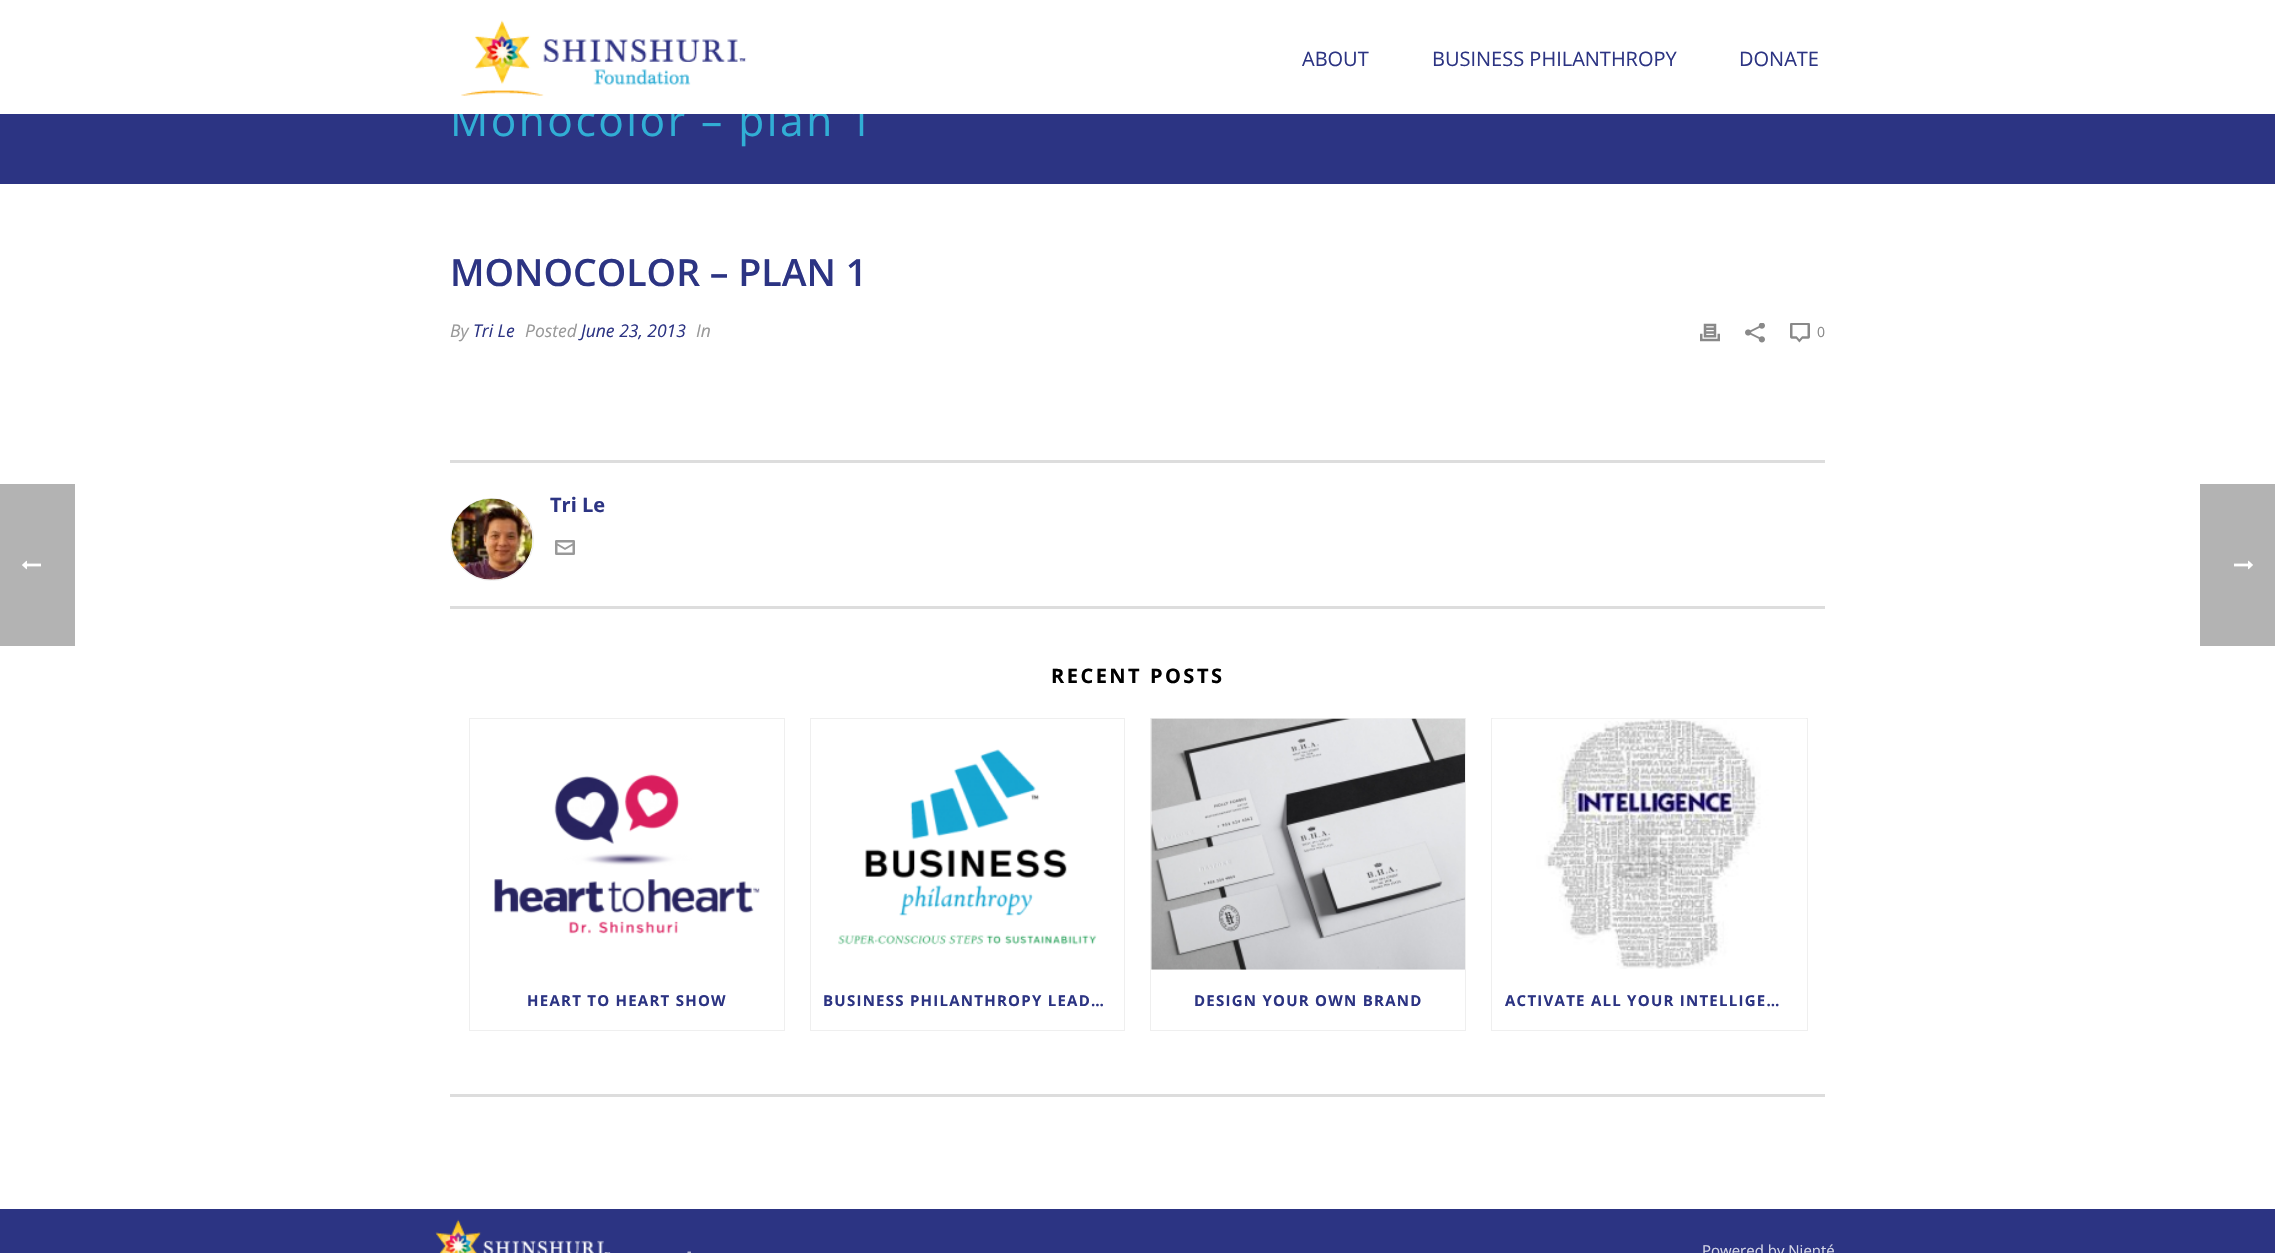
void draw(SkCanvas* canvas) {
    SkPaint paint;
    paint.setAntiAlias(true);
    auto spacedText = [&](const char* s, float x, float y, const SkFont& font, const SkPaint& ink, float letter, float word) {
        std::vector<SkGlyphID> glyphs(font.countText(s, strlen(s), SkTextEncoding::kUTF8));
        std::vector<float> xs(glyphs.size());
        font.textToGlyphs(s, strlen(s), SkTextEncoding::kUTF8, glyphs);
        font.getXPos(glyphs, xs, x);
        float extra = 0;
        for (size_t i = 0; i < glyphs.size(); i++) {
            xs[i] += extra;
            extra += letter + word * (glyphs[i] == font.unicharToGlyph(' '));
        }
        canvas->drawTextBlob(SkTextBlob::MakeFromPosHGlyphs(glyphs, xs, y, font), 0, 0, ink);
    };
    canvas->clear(0xFFFFFFFF);
    paint.setColor(0xFFB3B3B3);
    canvas->drawRect(SkRect::MakeXYWH(0, 484, 75, 162), paint);
    canvas->drawImageRect(SkImages::DeferredFromEncodedData(SkData::MakeFromFileName("img1.png")), SkRect::MakeXYWH(22, 560, 19, 10), SkSamplingOptions());
    paint.setColor(0xFF2C3483);
    canvas->drawRect(SkRect::MakeXYWH(0, 114, 2275, 70), paint);
    SkFont font1(fontMgr->matchFamilyStyle("Open Sans", SkFontStyle::Normal()), 42.5f);
    font1.setSubpixel(true);
    paint.setColor(0xFF31AED5);
    spacedText("Monocolor – plan 1", 450, 136, font1, paint, 2.5f, 0);
    paint.setColor(0xFFFFFFFF);
    canvas->drawRect(SkRect::MakeXYWH(454, 103, 410, 11), paint);
    canvas->drawImageRect(SkImages::DeferredFromEncodedData(SkData::MakeFromFileName("img2.png")), SkRect::MakeXYWH(461, 20, 286, 76), SkSamplingOptions());
    SkFont font2(fontMgr->matchFamilyStyle("Open Sans", SkFontStyle::Normal()), 20);
    font2.setSubpixel(true);
    paint.setColor(0xFF2C3483);
    canvas->drawString("ABOUT", 1302, 66, font2, paint);
    canvas->drawString("BUSINESS PHILANTHROPY", 1432, 66, font2, paint);
    canvas->drawString("DONATE", 1739, 66, font2, paint);
    SkFont font3(fontMgr->matchFamilyStyle("Open Sans", SkFontStyle(600, SkFontStyle::kNormal_Width, SkFontStyle::kUpright_Slant)), 37.5f);
    font3.setSubpixel(true);
    canvas->drawString("MONOCOLOR – PLAN 1", 450, 286, font3, paint);
    SkFont font4(fontMgr->matchFamilyStyle("Open Sans", SkFontStyle::Italic()), 17.5f);
    font4.setSubpixel(true);
    paint.setColor(0xFF999999);
    canvas->drawString("By", 450, 337, font4, paint);
    paint.setColor(0xFF2C3483);
    canvas->drawString("Tri Le", 473, 337, font4, paint);
    paint.setColor(0xFF999999);
    canvas->drawString("Posted", 525, 337, font4, paint);
    paint.setColor(0xFF2C3483);
    canvas->drawString("June 23, 2013", 581, 337, font4, paint);
    paint.setColor(0xFF999999);
    canvas->drawString("In", 696, 337, font4, paint);
    canvas->drawImageRect(SkImages::DeferredFromEncodedData(SkData::MakeFromFileName("img3.png")), SkRect::MakeXYWH(1700, 323, 20, 19), SkSamplingOptions());
    canvas->drawImageRect(SkImages::DeferredFromEncodedData(SkData::MakeFromFileName("img4.png")), SkRect::MakeXYWH(1745, 323, 20, 20), SkSamplingOptions());
    canvas->drawImageRect(SkImages::DeferredFromEncodedData(SkData::MakeFromFileName("img5.png")), SkRect::MakeXYWH(1790, 323, 20, 20), SkSamplingOptions());
    SkFont font5(fontMgr->matchFamilyStyle("Open Sans", SkFontStyle::Normal()), 14);
    font5.setSubpixel(true);
    paint.setColor(0xFF898989);
    canvas->drawString("0", 1817, 337, font5, paint);
    paint.setColor(0xFFDDDDDD);
    canvas->drawRect(SkRect::MakeXYWH(450, 460, 1375, 3), paint);
    canvas->drawRect(SkRect::MakeXYWH(450, 606, 1375, 3), paint);
    paint.setStyle(SkPaint::kStroke_Style);
    paint.setStrokeWidth(1);
    paint.setColor(0xFFEEEEEE);
    canvas->drawRoundRect(SkRect::MakeXYWH(450.5f, 498.5f, 83, 82), 41, 41, paint);
    canvas->drawImageRect(SkImages::DeferredFromEncodedData(SkData::MakeFromFileName("img6.png")), SkRect::MakeXYWH(451, 498, 82, 82), SkSamplingOptions());
    SkFont font6(fontMgr->matchFamilyStyle("Open Sans", SkFontStyle::Bold()), 20);
    font6.setSubpixel(true);
    paint.setStyle(SkPaint::kFill_Style);
    paint.setColor(0xFF2C3483);
    canvas->drawString("Tri Le", 550, 512, font6, paint);
    canvas->drawImageRect(SkImages::DeferredFromEncodedData(SkData::MakeFromFileName("img7.png")), SkRect::MakeXYWH(555, 540, 20, 15), SkSamplingOptions());
    paint.setColor(0xFFDDDDDD);
    canvas->drawRect(SkRect::MakeXYWH(450, 1094, 1375, 3), paint);
    paint.setColor(0xFF000000);
    spacedText("RECENT POSTS", 1051, 683, font6, paint, 2.5f, 0);
    paint.setStyle(SkPaint::kStroke_Style);
    paint.setColor(0xFFEFEFEF);
    canvas->drawRect(SkRect::MakeXYWH(469.5f, 718.5f, 315, 312), paint);
    canvas->drawImageRect(SkImages::DeferredFromEncodedData(SkData::MakeFromFileName("img8.png")), SkRect::MakeXYWH(494, 774, 266, 160), SkSamplingOptions());
    SkFont font7(fontMgr->matchFamilyStyle("Open Sans", SkFontStyle::Bold()), 15);
    font7.setSubpixel(true);
    paint.setStyle(SkPaint::kFill_Style);
    paint.setColor(0xFF2C3483);
    spacedText("HEART TO HEART SHOW", 527, 1006, font7, paint, 1.25f, 0);
    paint.setStyle(SkPaint::kStroke_Style);
    paint.setColor(0xFFEFEFEF);
    canvas->drawRect(SkRect::MakeXYWH(810.5f, 718.5f, 314, 312), paint);
    canvas->drawImageRect(SkImages::DeferredFromEncodedData(SkData::MakeFromFileName("img9.png")), SkRect::MakeXYWH(838, 749, 259, 196), SkSamplingOptions());
    paint.setStyle(SkPaint::kFill_Style);
    paint.setColor(0xFF2C3483);
    spacedText("BUSINESS PHILANTHROPY LEAD…", 823, 1006, font7, paint, 1.25f, 0);
    paint.setStyle(SkPaint::kStroke_Style);
    paint.setColor(0xFFEFEFEF);
    canvas->drawRect(SkRect::MakeXYWH(1150.5f, 718.5f, 315, 312), paint);
    canvas->drawImageRect(SkImages::DeferredFromEncodedData(SkData::MakeFromFileName("img10.png")), SkRect::MakeXYWH(1151, 718, 314, 252), SkSamplingOptions());
    paint.setStyle(SkPaint::kFill_Style);
    paint.setColor(0xFF2C3483);
    spacedText("DESIGN YOUR OWN BRAND", 1194, 1006, font7, paint, 1.25f, 0);
    paint.setStyle(SkPaint::kStroke_Style);
    paint.setColor(0xFFEFEFEF);
    canvas->drawRect(SkRect::MakeXYWH(1491.5f, 718.5f, 316, 312), paint);
    canvas->drawImageRect(SkImages::DeferredFromEncodedData(SkData::MakeFromFileName("img11.png")), SkRect::MakeXYWH(1493, 718, 313, 251), SkSamplingOptions());
    paint.setStyle(SkPaint::kFill_Style);
    paint.setColor(0xFF2C3483);
    spacedText("ACTIVATE ALL YOUR INTELLIGE…", 1505, 1006, font7, paint, 1.25f, 0);
    canvas->drawRect(SkRect::MakeXYWH(0, 1209, 2275, 44), paint);
    canvas->drawImageRect(SkImages::DeferredFromEncodedData(SkData::MakeFromFileName("img12.png")), SkRect::MakeXYWH(435, 1219, 176, 34), SkSamplingOptions());
    paint.setColor(0xFFD5D6E6);
    spacedText("-", 687, 1256, font5, paint, 1.25f, 0);
    SkFont font8(fontMgr->matchFamilyStyle("Open Sans", SkFontStyle::Normal()), 15);
    font8.setSubpixel(true);
    canvas->drawString("Powered by Nienté", 1702, 1256, font8, paint);
    paint.setColor(0xFFB3B3B3);
    canvas->drawRect(SkRect::MakeXYWH(2200, 484, 75, 162), paint);
    canvas->drawImageRect(SkImages::DeferredFromEncodedData(SkData::MakeFromFileName("img13.png")), SkRect::MakeXYWH(2234, 560, 19, 10), SkSamplingOptions());
}
